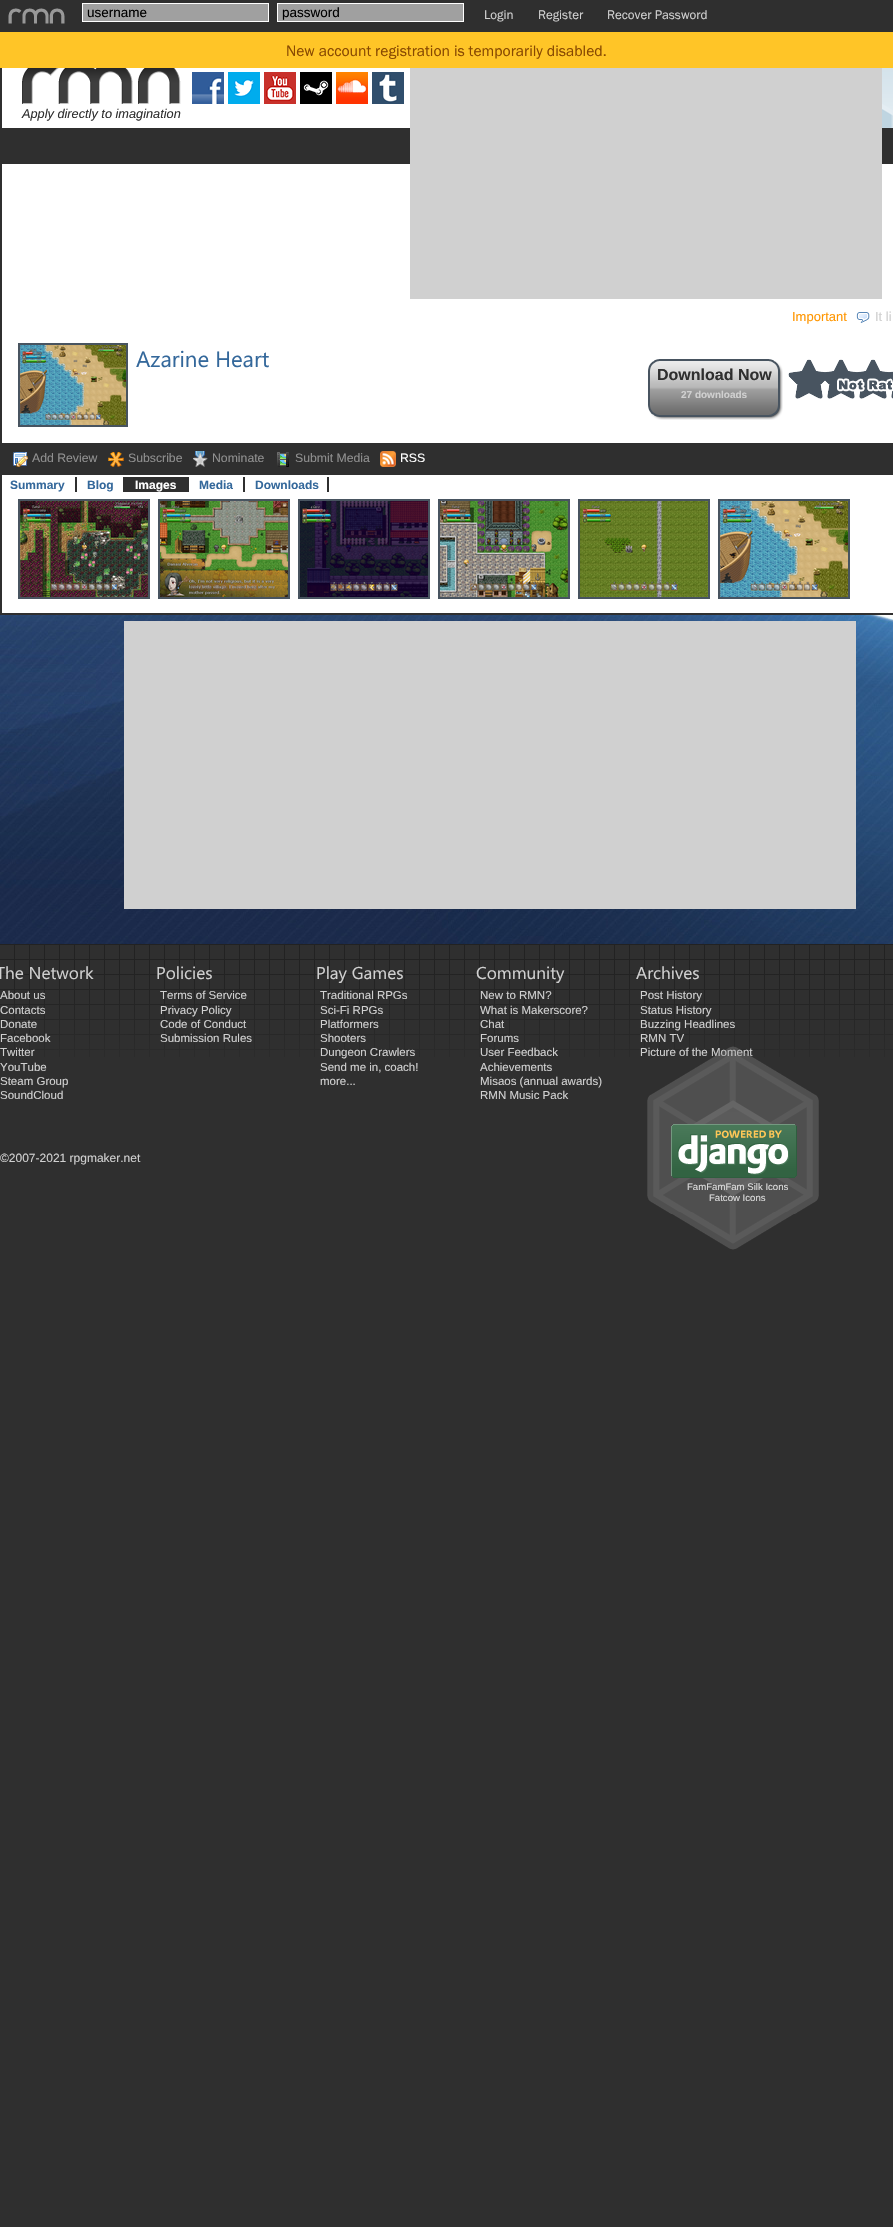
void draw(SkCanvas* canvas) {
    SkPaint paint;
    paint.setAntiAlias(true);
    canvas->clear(0xFF2F2F2F);
    canvas->drawImageRect(SkImages::DeferredFromEncodedData(SkData::MakeFromFileName("img1.png")), SkRect::MakeXYWH(8, 8, 57, 16), SkSamplingOptions());
    paint.setColor(0xFFA0A0A0);
    canvas->drawRect(SkRect::MakeXYWH(82.5f, 3.5f, 186, 18), paint);
    paint.setStyle(SkPaint::kStroke_Style);
    paint.setStrokeWidth(1);
    paint.setColor(0xFFFFFFFF);
    canvas->drawRect(SkRect::MakeXYWH(82.5f, 3.5f, 186, 18), paint);
    SkFont font1(fontMgr->matchFamilyStyle("Liberation Sans", SkFontStyle::Normal()), 13.5f);
    font1.setSubpixel(true);
    paint.setStyle(SkPaint::kFill_Style);
    paint.setColor(0xFF000000);
    canvas->drawString("username", 87, 17, font1, paint);
    paint.setColor(0xFFA0A0A0);
    canvas->drawRect(SkRect::MakeXYWH(277.5f, 3.5f, 186, 18), paint);
    paint.setStyle(SkPaint::kStroke_Style);
    paint.setColor(0xFFFFFFFF);
    canvas->drawRect(SkRect::MakeXYWH(277.5f, 3.5f, 186, 18), paint);
    paint.setStyle(SkPaint::kFill_Style);
    paint.setColor(0xFF000000);
    canvas->drawString("password", 282, 17, font1, paint);
    SkFont font2(fontMgr->matchFamilyStyle("Franklin Gothic", SkFontStyle::Normal()), 13);
    font2.setSubpixel(true);
    paint.setColor(0xFFD0D0D0);
    canvas->drawString("Login", 484, 19, font2, paint);
    canvas->drawString("Register", 538, 19, font2, paint);
    canvas->drawString("Recover Password", 607, 19, font2, paint);
    paint.setColor(0xFFFFC527);
    canvas->drawRect(SkRect::MakeXYWH(0, 32, 893, 36), paint);
    SkFont font3(fontMgr->matchFamilyStyle("Franklin Gothic", SkFontStyle::Normal()), 15.6f);
    font3.setSubpixel(true);
    paint.setColor(0xFF884901);
    canvas->drawString("New account registration is temporarily disabled.", 286, 56, font3, paint);
    canvas->drawImageRect(SkImages::DeferredFromEncodedData(SkData::MakeFromFileName("img2.png")), SkRect::MakeXYWH(0, 615, 893, 329), SkSamplingOptions());
    paint.setColor(0xFFFFFFFF);
    canvas->drawRect(SkRect::MakeXYWH(2, 68, 891, 60), paint);
    canvas->drawImageRect(SkImages::DeferredFromEncodedData(SkData::MakeFromFileName("img3.png")), SkRect::MakeXYWH(22, 68, 159, 36), SkSamplingOptions());
    canvas->drawImageRect(SkImages::DeferredFromEncodedData(SkData::MakeFromFileName("img4.png")), SkRect::MakeXYWH(192, 72, 32, 32), SkSamplingOptions());
    canvas->drawImageRect(SkImages::DeferredFromEncodedData(SkData::MakeFromFileName("img5.png")), SkRect::MakeXYWH(228, 72, 32, 32), SkSamplingOptions());
    canvas->drawImageRect(SkImages::DeferredFromEncodedData(SkData::MakeFromFileName("img6.png")), SkRect::MakeXYWH(264, 72, 32, 32), SkSamplingOptions());
    canvas->drawImageRect(SkImages::DeferredFromEncodedData(SkData::MakeFromFileName("img7.png")), SkRect::MakeXYWH(300, 72, 32, 32), SkSamplingOptions());
    canvas->drawImageRect(SkImages::DeferredFromEncodedData(SkData::MakeFromFileName("img8.png")), SkRect::MakeXYWH(336, 72, 32, 32), SkSamplingOptions());
    canvas->drawImageRect(SkImages::DeferredFromEncodedData(SkData::MakeFromFileName("img9.png")), SkRect::MakeXYWH(372, 72, 32, 32), SkSamplingOptions());
    canvas->drawRect(SkRect::MakeXYWH(2, 164, 891, 449), paint);
    paint.setColor(0xFFD0D0D0);
    canvas->drawRect(SkRect::MakeXYWH(410, 68, 472, 231), paint);
    canvas->drawImageRect(SkImages::DeferredFromEncodedData(SkData::MakeFromFileName("img10.png")), SkRect::MakeXYWH(882, 68, 11, 60), SkSamplingOptions());
    SkFont font4(fontMgr->matchFamilyStyle("Liberation Sans", SkFontStyle::Italic()), 12.75f);
    font4.setSubpixel(true);
    paint.setColor(0xFF2F2F2F);
    canvas->drawString("Apply directly to imagination", 22, 118, font4, paint);
    SkFont font5(fontMgr->matchFamilyStyle("Liberation Sans", SkFontStyle::Normal()), 13);
    font5.setSubpixel(true);
    paint.setColor(0xFFFF9600);
    canvas->drawString("Important", 792, 321, font5, paint);
    canvas->drawImageRect(SkImages::DeferredFromEncodedData(SkData::MakeFromFileName("img11.png")), SkRect::MakeXYWH(856, 312, 14, 11), SkSamplingOptions());
    paint.setColor(0xFFD0D0D0);
    canvas->drawString("It li", 875, 321, font5, paint);
    paint.setStyle(SkPaint::kStroke_Style);
    paint.setStrokeWidth(2);
    paint.setColor(0xFF485460);
    canvas->drawRect(SkRect::MakeXYWH(19, 344, 108, 82), paint);
    canvas->drawImageRect(SkImages::DeferredFromEncodedData(SkData::MakeFromFileName("img12.png")), SkRect::MakeXYWH(20, 345, 106, 80), SkSamplingOptions());
    SkFont font6(fontMgr->matchFamilyStyle("Segoe UI", SkFontStyle::Normal()), 22.25f);
    font6.setSubpixel(true);
    paint.setStyle(SkPaint::kFill_Style);
    paint.setColor(0xFF34689B);
    canvas->drawString("Azarine Heart", 136, 367, font6, paint);
    canvas->drawImageRect(SkImages::DeferredFromEncodedData(SkData::MakeFromFileName("img13.png")), SkRect::MakeXYWH(648, 359, 135, 61), SkSamplingOptions());
    SkFont font7(fontMgr->matchFamilyStyle("Liberation Sans", SkFontStyle::Bold()), 16);
    font7.setSubpixel(true);
    paint.setColor(0xFF2F2F2F);
    canvas->drawString("Download Now", 657, 380, font7, paint);
    SkFont font8(fontMgr->matchFamilyStyle("Liberation Sans", SkFontStyle::Bold()), 10);
    font8.setSubpixel(true);
    paint.setColor(0xFFD0D0D0);
    canvas->drawString("27 downloads", 681, 398, font8, paint);
    canvas->drawImageRect(SkImages::DeferredFromEncodedData(SkData::MakeFromFileName("img14.png")), SkRect::MakeXYWH(788, 359, 105, 40), SkSamplingOptions());
    paint.setColor(0xFF2F2F2F);
    canvas->drawRect(SkRect::MakeXYWH(2, 443, 891, 32), paint);
    canvas->drawImageRect(SkImages::DeferredFromEncodedData(SkData::MakeFromFileName("img15.png")), SkRect::MakeXYWH(13, 452, 15, 15), SkSamplingOptions());
    SkFont font9(fontMgr->matchFamilyStyle("Liberation Sans", SkFontStyle::Normal()), 12.25f);
    font9.setSubpixel(true);
    paint.setColor(0xFF909090);
    canvas->drawString("Add Review", 32, 462, font9, paint);
    canvas->drawImageRect(SkImages::DeferredFromEncodedData(SkData::MakeFromFileName("img16.png")), SkRect::MakeXYWH(108, 452, 16, 15), SkSamplingOptions());
    canvas->drawString("Subscribe", 128, 462, font9, paint);
    canvas->drawImageRect(SkImages::DeferredFromEncodedData(SkData::MakeFromFileName("img17.png")), SkRect::MakeXYWH(193, 451, 15, 16), SkSamplingOptions());
    canvas->drawString("Nominate", 212, 462, font9, paint);
    canvas->drawImageRect(SkImages::DeferredFromEncodedData(SkData::MakeFromFileName("img18.png")), SkRect::MakeXYWH(277, 452, 12, 15), SkSamplingOptions());
    canvas->drawString("Submit Media", 295, 462, font9, paint);
    canvas->drawImageRect(SkImages::DeferredFromEncodedData(SkData::MakeFromFileName("img19.png")), SkRect::MakeXYWH(380, 451, 16, 16), SkSamplingOptions());
    paint.setColor(0xFFFFFFFF);
    canvas->drawString("RSS", 400, 462, font9, paint);
    SkFont font10(fontMgr->matchFamilyStyle("Liberation Sans", SkFontStyle::Bold()), 12);
    font10.setSubpixel(true);
    paint.setColor(0xFF34689B);
    canvas->drawString("Summary", 10, 489, font10, paint);
    paint.setColor(0xFF2F2F2F);
    canvas->drawRect(SkRect::MakeXYWH(75, 477, 2, 15), paint);
    paint.setColor(0xFF34689B);
    canvas->drawString("Blog", 87, 489, font10, paint);
    paint.setColor(0xFF2F2F2F);
    canvas->drawRect(SkRect::MakeXYWH(123, 477, 66, 15), paint);
    paint.setColor(0xFFFFFFFF);
    canvas->drawString("Images", 135, 489, font10, paint);
    paint.setColor(0xFF34689B);
    canvas->drawString("Media", 199, 489, font10, paint);
    paint.setColor(0xFF2F2F2F);
    canvas->drawRect(SkRect::MakeXYWH(327, 477, 2, 15), paint);
    canvas->drawRect(SkRect::MakeXYWH(243, 477, 2, 15), paint);
    paint.setColor(0xFF34689B);
    canvas->drawString("Downloads", 255, 489, font10, paint);
    paint.setStyle(SkPaint::kStroke_Style);
    paint.setColor(0xFF485460);
    canvas->drawRect(SkRect::MakeXYWH(19, 500, 130, 98), paint);
    canvas->drawImageRect(SkImages::DeferredFromEncodedData(SkData::MakeFromFileName("img20.png")), SkRect::MakeXYWH(20, 501, 128, 96), SkSamplingOptions());
    canvas->drawRect(SkRect::MakeXYWH(159, 500, 130, 98), paint);
    canvas->drawImageRect(SkImages::DeferredFromEncodedData(SkData::MakeFromFileName("img21.png")), SkRect::MakeXYWH(160, 501, 128, 96), SkSamplingOptions());
    canvas->drawRect(SkRect::MakeXYWH(299, 500, 130, 98), paint);
    canvas->drawImageRect(SkImages::DeferredFromEncodedData(SkData::MakeFromFileName("img22.png")), SkRect::MakeXYWH(300, 501, 128, 96), SkSamplingOptions());
    canvas->drawRect(SkRect::MakeXYWH(439, 500, 130, 98), paint);
    canvas->drawImageRect(SkImages::DeferredFromEncodedData(SkData::MakeFromFileName("img23.png")), SkRect::MakeXYWH(440, 501, 128, 96), SkSamplingOptions());
    canvas->drawRect(SkRect::MakeXYWH(579, 500, 130, 98), paint);
    canvas->drawImageRect(SkImages::DeferredFromEncodedData(SkData::MakeFromFileName("img24.png")), SkRect::MakeXYWH(580, 501, 128, 96), SkSamplingOptions());
    canvas->drawRect(SkRect::MakeXYWH(719, 500, 130, 98), paint);
    canvas->drawImageRect(SkImages::DeferredFromEncodedData(SkData::MakeFromFileName("img25.png")), SkRect::MakeXYWH(720, 501, 128, 96), SkSamplingOptions());
    paint.setStyle(SkPaint::kFill_Style);
    paint.setColor(0xFFD0D0D0);
    canvas->drawRect(SkRect::MakeXYWH(124, 621, 732, 288), paint);
    canvas->drawImageRect(SkImages::DeferredFromEncodedData(SkData::MakeFromFileName("img26.png")), SkRect::MakeXYWH(0, 944, 893, 113), SkSamplingOptions());
    SkFont font11(fontMgr->matchFamilyStyle("Segoe UI", SkFontStyle::Normal()), 17.25f);
    font11.setSubpixel(true);
    canvas->drawString("The Network", -4, 979, font11, paint);
    SkFont font12(fontMgr->matchFamilyStyle("Liberation Sans", SkFontStyle::Normal()), 11.5f);
    font12.setSubpixel(true);
    canvas->drawString("About us", 0, 999, font12, paint);
    canvas->drawString("Contacts", 0, 1014, font12, paint);
    canvas->drawString("Donate", 0, 1028, font12, paint);
    canvas->drawString("Facebook", 0, 1042, font12, paint);
    canvas->drawString("Twitter", 0, 1056, font12, paint);
    canvas->drawString("YouTube", 0, 1071, font12, paint);
    canvas->drawString("Steam Group", 0, 1085, font12, paint);
    canvas->drawString("SoundCloud", 0, 1099, font12, paint);
    canvas->drawString("Policies", 156, 979, font11, paint);
    canvas->drawString("Terms of Service", 160, 999, font12, paint);
    canvas->drawString("Privacy Policy", 160, 1014, font12, paint);
    canvas->drawString("Code of Conduct", 160, 1028, font12, paint);
    canvas->drawString("Submission Rules", 160, 1042, font12, paint);
    canvas->drawString("Play Games", 316, 979, font11, paint);
    canvas->drawString("Traditional RPGs", 320, 999, font12, paint);
    canvas->drawString("Sci-Fi RPGs", 320, 1014, font12, paint);
    canvas->drawString("Platformers", 320, 1028, font12, paint);
    canvas->drawString("Shooters", 320, 1042, font12, paint);
    canvas->drawString("Dungeon Crawlers", 320, 1056, font12, paint);
    canvas->drawString("Send me in, coach!", 320, 1071, font12, paint);
    canvas->drawString("more...", 320, 1085, font12, paint);
    canvas->drawString("Community", 476, 979, font11, paint);
    canvas->drawString("New to RMN?", 480, 999, font12, paint);
    canvas->drawString("What is Makerscore?", 480, 1014, font12, paint);
    canvas->drawString("Chat", 480, 1028, font12, paint);
    canvas->drawString("Forums", 480, 1042, font12, paint);
    canvas->drawString("User Feedback", 480, 1056, font12, paint);
    canvas->drawString("Achievements", 480, 1071, font12, paint);
    canvas->drawString("Misaos (annual awards)", 480, 1085, font12, paint);
    canvas->drawString("RMN Music Pack", 480, 1099, font12, paint);
    canvas->drawString("Archives", 636, 979, font11, paint);
    canvas->drawString("Post History", 640, 999, font12, paint);
    canvas->drawString("Status History", 640, 1014, font12, paint);
    canvas->drawString("Buzzing Headlines", 640, 1028, font12, paint);
    canvas->drawString("RMN TV", 640, 1042, font12, paint);
    canvas->drawString("Picture of the Moment", 640, 1056, font12, paint);
    canvas->drawImageRect(SkImages::DeferredFromEncodedData(SkData::MakeFromFileName("img27.png")), SkRect::MakeXYWH(647, 1046, 172, 204), SkSamplingOptions());
    SkFont font13(fontMgr->matchFamilyStyle("Liberation Sans", SkFontStyle::Normal()), 12);
    font13.setSubpixel(true);
    canvas->drawString("©2007-2021 rpgmaker.net", 0, 1162, font13, paint);
    canvas->drawImageRect(SkImages::DeferredFromEncodedData(SkData::MakeFromFileName("img28.png")), SkRect::MakeXYWH(671, 1124, 126, 54), SkSamplingOptions());
    SkFont font14(fontMgr->matchFamilyStyle("Liberation Sans", SkFontStyle::Normal()), 9.6f);
    font14.setSubpixel(true);
    paint.setColor(0xFFDDDDDD);
    canvas->drawString("FamFamFam Silk Icons", 687, 1190, font14, paint);
    canvas->drawString("Fatcow Icons", 709, 1201, font14, paint);
}
